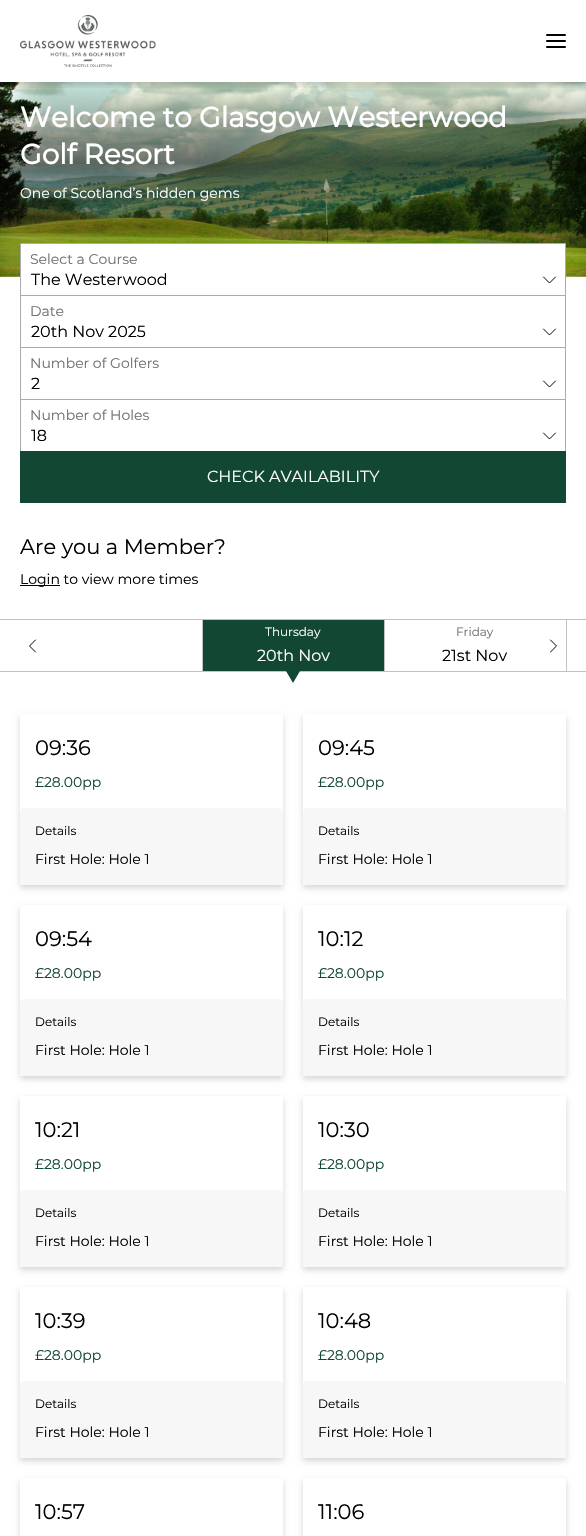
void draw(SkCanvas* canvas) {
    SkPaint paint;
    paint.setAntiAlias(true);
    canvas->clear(0xFFFFFFFF);
    canvas->drawImageRect(SkImages::DeferredFromEncodedData(SkData::MakeFromFileName("img2.png")), SkRect::MakeXYWH(0, 82, 586, 195), SkSamplingOptions());
    canvas->save();
    canvas->clipRect(SkRect::MakeXYWH(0, 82, 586, 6));
    paint.setColor(0x29000000);
    paint.setMaskFilter(SkMaskFilter::MakeBlur(kNormal_SkBlurStyle, 3));
    canvas->drawRect(SkRect::MakeXYWH(0, 3, 586, 82), paint);
    paint.setMaskFilter(nullptr);
    canvas->restore();
    canvas->drawImageRect(SkImages::DeferredFromEncodedData(SkData::MakeFromFileName("img1.png")), SkRect::MakeXYWH(20, 15, 136, 52), SkSamplingOptions());
    paint.setColor(0xFF000000);
    canvas->drawRoundRect(SkRect::MakeXYWH(546, 40, 20, 2), 1, 1, paint);
    canvas->drawRoundRect(SkRect::MakeXYWH(546, 34, 20, 2), 1, 1, paint);
    canvas->drawRoundRect(SkRect::MakeXYWH(546, 46, 20, 2), 1, 1, paint);
    SkFont font1(fontMgr->matchFamilyStyle("Montserrat", SkFontStyle::Bold()), 28);
    font1.setSubpixel(true);
    paint.setColor(0xFFFFFFFF);
    canvas->drawString("Welcome to Glasgow Westerwood", 20, 127, font1, paint);
    canvas->drawString("Golf Resort", 20, 164, font1, paint);
    SkFont font2(fontMgr->matchFamilyStyle("Montserrat", SkFontStyle(100, SkFontStyle::kNormal_Width, SkFontStyle::kUpright_Slant)), 14);
    font2.setSubpixel(true);
    canvas->drawString("One of Scotland’s hidden gems", 20, 198, font2, paint);
    canvas->drawRect(SkRect::MakeXYWH(21, 244, 544, 33), paint);
    paint.setColor(0xFF707070);
    canvas->drawString("Select a Course", 30, 264, font2, paint);
    paint.setColor(0xFFACACAC);
    canvas->drawRect(SkRect::MakeXYWH(20, 243, 546, 1), paint);
    canvas->drawRect(SkRect::MakeXYWH(565, 243, 1, 52), paint);
    canvas->drawRect(SkRect::MakeXYWH(20, 243, 1, 52), paint);
    SkFont font3(fontMgr->matchFamilyStyle("Montserrat", SkFontStyle(100, SkFontStyle::kNormal_Width, SkFontStyle::kUpright_Slant)), 16);
    font3.setSubpixel(true);
    paint.setColor(0xFF000000);
    canvas->drawString("The Westerwood", 31, 285, font3, paint);
    paint.setStyle(SkPaint::kStroke_Style);
    paint.setStrokeWidth(1);
    paint.setStrokeCap(SkPaint::kRound_Cap);
    paint.setStrokeJoin(SkPaint::kRound_Join);
    canvas->drawPath(SkPathBuilder().moveTo(543.5f, 277).lineTo(549.5f, 283).lineTo(555.5f, 277).detach(), paint);
    paint.setStyle(SkPaint::kFill_Style);
    paint.setColor(0xFF707070);
    canvas->drawString("Date", 30, 316, font2, paint);
    paint.setColor(0xFFACACAC);
    canvas->drawRect(SkRect::MakeXYWH(20, 295, 546, 1), paint);
    canvas->drawRect(SkRect::MakeXYWH(565, 295, 1, 52), paint);
    canvas->drawRect(SkRect::MakeXYWH(20, 295, 1, 52), paint);
    paint.setColor(0xFF000000);
    canvas->drawString("20th Nov 2025", 31, 337, font3, paint);
    paint.setStyle(SkPaint::kStroke_Style);
    canvas->drawPath(SkPathBuilder().moveTo(543.5f, 329).lineTo(549.5f, 335).lineTo(555.5f, 329).detach(), paint);
    paint.setStyle(SkPaint::kFill_Style);
    paint.setColor(0xFF707070);
    canvas->drawString("Number of Golfers", 30, 368, font2, paint);
    paint.setColor(0xFFACACAC);
    canvas->drawRect(SkRect::MakeXYWH(20, 347, 546, 1), paint);
    canvas->drawRect(SkRect::MakeXYWH(565, 347, 1, 52), paint);
    canvas->drawRect(SkRect::MakeXYWH(20, 347, 1, 52), paint);
    paint.setColor(0xFF000000);
    canvas->drawString("2", 31, 389, font3, paint);
    paint.setStyle(SkPaint::kStroke_Style);
    canvas->drawPath(SkPathBuilder().moveTo(543.5f, 381).lineTo(549.5f, 387).lineTo(555.5f, 381).detach(), paint);
    paint.setStyle(SkPaint::kFill_Style);
    paint.setColor(0xFF707070);
    canvas->drawString("Number of Holes", 30, 420, font2, paint);
    paint.setColor(0xFFACACAC);
    canvas->drawRect(SkRect::MakeXYWH(20, 399, 546, 1), paint);
    canvas->drawRect(SkRect::MakeXYWH(565, 399, 1, 52), paint);
    canvas->drawRect(SkRect::MakeXYWH(20, 399, 1, 52), paint);
    paint.setColor(0xFF000000);
    canvas->drawString("18", 31, 441, font3, paint);
    paint.setStyle(SkPaint::kStroke_Style);
    canvas->drawPath(SkPathBuilder().moveTo(543.5f, 433).lineTo(549.5f, 439).lineTo(555.5f, 433).detach(), paint);
    paint.setStyle(SkPaint::kFill_Style);
    paint.setColor(0xFF124734);
    canvas->drawRect(SkRect::MakeXYWH(20, 451, 546, 52), paint);
    paint.setColor(0xFFFFFFFF);
    canvas->drawString("CHECK AVAILABILITY", 207, 482, font3, paint);
    SkFont font4(fontMgr->matchFamilyStyle("Montserrat", SkFontStyle(100, SkFontStyle::kNormal_Width, SkFontStyle::kUpright_Slant)), 21);
    font4.setSubpixel(true);
    paint.setColor(0xFF000000);
    canvas->drawString("Are you a Member?", 20, 554, font4, paint);
    canvas->drawRect(SkRect::MakeXYWH(20, 585, 40, 1), paint);
    canvas->drawString("Login to view more times", 20, 584, font2, paint);
    paint.setStyle(SkPaint::kStroke_Style);
    canvas->drawPath(SkPathBuilder().moveTo(35.5f, 640).lineTo(29.5f, 646).lineTo(35.5f, 652).detach(), paint);
    paint.setStyle(SkPaint::kFill_Style);
    paint.setColor(0xFFC1C1C1);
    canvas->drawRect(SkRect::MakeXYWH(0, 619, 586, 1), paint);
    paint.setColor(0xFF124734);
    canvas->drawRect(SkRect::MakeXYWH(203, 620, 181, 51), paint);
    paint.setColor(0xFFC1C1C1);
    canvas->drawRect(SkRect::MakeXYWH(202, 620, 1, 51), paint);
    SkFont font5(fontMgr->matchFamilyStyle("Montserrat", SkFontStyle(100, SkFontStyle::kNormal_Width, SkFontStyle::kUpright_Slant)), 12);
    font5.setSubpixel(true);
    paint.setColor(0xFFFFFFFF);
    canvas->drawString("Thursday", 265, 636, font5, paint);
    canvas->drawString("20th Nov", 257, 661, font3, paint);
    paint.setColor(0xFFC1C1C1);
    canvas->drawRect(SkRect::MakeXYWH(0, 671, 586, 1), paint);
    paint.setColor(0xFF124734);
    canvas->drawPath(SkPathBuilder().moveTo(286, 671).lineTo(300, 671).lineTo(293, 683).close().detach(), paint);
    paint.setColor(0xFFC1C1C1);
    canvas->drawRect(SkRect::MakeXYWH(384, 620, 1, 51), paint);
    paint.setColor(0xFF707070);
    canvas->drawString("Friday", 456, 636, font5, paint);
    paint.setColor(0xFF000000);
    canvas->drawString("21st Nov", 442, 661, font3, paint);
    paint.setColor(0xFFC1C1C1);
    canvas->drawRect(SkRect::MakeXYWH(566, 620, 1, 51), paint);
    paint.setStyle(SkPaint::kStroke_Style);
    paint.setColor(0xFF000000);
    canvas->drawPath(SkPathBuilder().moveTo(550.5f, 652).lineTo(556.5f, 646).lineTo(550.5f, 640).detach(), paint);
    canvas->save();
    canvas->clipPath(SkPathBuilder(SkPathFillType::kEvenOdd).moveTo(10, 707).lineTo(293, 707).lineTo(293, 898).lineTo(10, 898).close().moveTo(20, 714).lineTo(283, 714).lineTo(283, 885).lineTo(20, 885).close().detach(), true);
    paint.setStyle(SkPaint::kFill_Style);
    paint.setColor(0x29000000);
    paint.setMaskFilter(SkMaskFilter::MakeBlur(kNormal_SkBlurStyle, 3));
    canvas->drawRect(SkRect::MakeXYWH(20, 717, 263, 171), paint);
    paint.setMaskFilter(nullptr);
    canvas->restore();
    paint.setColor(0xFF000000);
    canvas->drawString("09:36", 35, 755, font4, paint);
    paint.setColor(0xFF124734);
    canvas->drawString("£28.00pp", 35, 787, font2, paint);
    paint.setColor(0xFFF7F7F7);
    canvas->drawPath(SkPathBuilder().moveTo(25, 808).lineTo(278, 808).cubicTo(281, 808, 283, 810, 283, 813).lineTo(283, 885).lineTo(20, 885).lineTo(20, 813).cubicTo(20, 810, 22, 808, 25, 808).close().detach(), paint);
    paint.setColor(0xFF000000);
    canvas->drawString("Details", 35, 835, font5, paint);
    canvas->drawString("First Hole: Hole 1", 35, 864, font2, paint);
    canvas->save();
    canvas->clipPath(SkPathBuilder(SkPathFillType::kEvenOdd).moveTo(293, 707).lineTo(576, 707).lineTo(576, 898).lineTo(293, 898).close().moveTo(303, 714).lineTo(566, 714).lineTo(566, 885).lineTo(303, 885).close().detach(), true);
    paint.setColor(0x29000000);
    paint.setMaskFilter(SkMaskFilter::MakeBlur(kNormal_SkBlurStyle, 3));
    canvas->drawRect(SkRect::MakeXYWH(303, 717, 263, 171), paint);
    paint.setMaskFilter(nullptr);
    canvas->restore();
    paint.setColor(0xFF000000);
    canvas->drawString("09:45", 318, 755, font4, paint);
    paint.setColor(0xFF124734);
    canvas->drawString("£28.00pp", 318, 787, font2, paint);
    paint.setColor(0xFFF7F7F7);
    canvas->drawPath(SkPathBuilder().moveTo(308, 808).lineTo(561, 808).cubicTo(564, 808, 566, 810, 566, 813).lineTo(566, 885).lineTo(303, 885).lineTo(303, 813).cubicTo(303, 810, 305, 808, 308, 808).close().detach(), paint);
    paint.setColor(0xFF000000);
    canvas->drawString("Details", 318, 835, font5, paint);
    canvas->drawString("First Hole: Hole 1", 318, 864, font2, paint);
    canvas->save();
    canvas->clipPath(SkPathBuilder(SkPathFillType::kEvenOdd).moveTo(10, 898).lineTo(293, 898).lineTo(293, 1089).lineTo(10, 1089).close().moveTo(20, 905).lineTo(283, 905).lineTo(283, 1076).lineTo(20, 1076).close().detach(), true);
    paint.setColor(0x29000000);
    paint.setMaskFilter(SkMaskFilter::MakeBlur(kNormal_SkBlurStyle, 3));
    canvas->drawRect(SkRect::MakeXYWH(20, 908, 263, 171), paint);
    paint.setMaskFilter(nullptr);
    canvas->restore();
    paint.setColor(0xFF000000);
    canvas->drawString("09:54", 35, 946, font4, paint);
    paint.setColor(0xFF124734);
    canvas->drawString("£28.00pp", 35, 978, font2, paint);
    paint.setColor(0xFFF7F7F7);
    canvas->drawPath(SkPathBuilder().moveTo(25, 999).lineTo(278, 999).cubicTo(281, 999, 283, 1001, 283, 1004).lineTo(283, 1076).lineTo(20, 1076).lineTo(20, 1004).cubicTo(20, 1001, 22, 999, 25, 999).close().detach(), paint);
    paint.setColor(0xFF000000);
    canvas->drawString("Details", 35, 1026, font5, paint);
    canvas->drawString("First Hole: Hole 1", 35, 1055, font2, paint);
    canvas->save();
    canvas->clipPath(SkPathBuilder(SkPathFillType::kEvenOdd).moveTo(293, 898).lineTo(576, 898).lineTo(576, 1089).lineTo(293, 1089).close().moveTo(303, 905).lineTo(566, 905).lineTo(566, 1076).lineTo(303, 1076).close().detach(), true);
    paint.setColor(0x29000000);
    paint.setMaskFilter(SkMaskFilter::MakeBlur(kNormal_SkBlurStyle, 3));
    canvas->drawRect(SkRect::MakeXYWH(303, 908, 263, 171), paint);
    paint.setMaskFilter(nullptr);
    canvas->restore();
    paint.setColor(0xFF000000);
    canvas->drawString("10:12", 318, 946, font4, paint);
    paint.setColor(0xFF124734);
    canvas->drawString("£28.00pp", 318, 978, font2, paint);
    paint.setColor(0xFFF7F7F7);
    canvas->drawPath(SkPathBuilder().moveTo(308, 999).lineTo(561, 999).cubicTo(564, 999, 566, 1001, 566, 1004).lineTo(566, 1076).lineTo(303, 1076).lineTo(303, 1004).cubicTo(303, 1001, 305, 999, 308, 999).close().detach(), paint);
    paint.setColor(0xFF000000);
    canvas->drawString("Details", 318, 1026, font5, paint);
    canvas->drawString("First Hole: Hole 1", 318, 1055, font2, paint);
    canvas->save();
    canvas->clipPath(SkPathBuilder(SkPathFillType::kEvenOdd).moveTo(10, 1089).lineTo(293, 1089).lineTo(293, 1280).lineTo(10, 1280).close().moveTo(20, 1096).lineTo(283, 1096).lineTo(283, 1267).lineTo(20, 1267).close().detach(), true);
    paint.setColor(0x29000000);
    paint.setMaskFilter(SkMaskFilter::MakeBlur(kNormal_SkBlurStyle, 3));
    canvas->drawRect(SkRect::MakeXYWH(20, 1099, 263, 171), paint);
    paint.setMaskFilter(nullptr);
    canvas->restore();
    paint.setColor(0xFF000000);
    canvas->drawString("10:21", 35, 1137, font4, paint);
    paint.setColor(0xFF124734);
    canvas->drawString("£28.00pp", 35, 1169, font2, paint);
    paint.setColor(0xFFF7F7F7);
    canvas->drawPath(SkPathBuilder().moveTo(25, 1190).lineTo(278, 1190).cubicTo(281, 1190, 283, 1192, 283, 1195).lineTo(283, 1267).lineTo(20, 1267).lineTo(20, 1195).cubicTo(20, 1192, 22, 1190, 25, 1190).close().detach(), paint);
    paint.setColor(0xFF000000);
    canvas->drawString("Details", 35, 1217, font5, paint);
    canvas->drawString("First Hole: Hole 1", 35, 1246, font2, paint);
    canvas->save();
    canvas->clipPath(SkPathBuilder(SkPathFillType::kEvenOdd).moveTo(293, 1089).lineTo(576, 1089).lineTo(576, 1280).lineTo(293, 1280).close().moveTo(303, 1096).lineTo(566, 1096).lineTo(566, 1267).lineTo(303, 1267).close().detach(), true);
    paint.setColor(0x29000000);
    paint.setMaskFilter(SkMaskFilter::MakeBlur(kNormal_SkBlurStyle, 3));
    canvas->drawRect(SkRect::MakeXYWH(303, 1099, 263, 171), paint);
    paint.setMaskFilter(nullptr);
    canvas->restore();
    paint.setColor(0xFF000000);
    canvas->drawString("10:30", 318, 1137, font4, paint);
    paint.setColor(0xFF124734);
    canvas->drawString("£28.00pp", 318, 1169, font2, paint);
    paint.setColor(0xFFF7F7F7);
    canvas->drawPath(SkPathBuilder().moveTo(308, 1190).lineTo(561, 1190).cubicTo(564, 1190, 566, 1192, 566, 1195).lineTo(566, 1267).lineTo(303, 1267).lineTo(303, 1195).cubicTo(303, 1192, 305, 1190, 308, 1190).close().detach(), paint);
    paint.setColor(0xFF000000);
    canvas->drawString("Details", 318, 1217, font5, paint);
    canvas->drawString("First Hole: Hole 1", 318, 1246, font2, paint);
    canvas->save();
    canvas->clipPath(SkPathBuilder(SkPathFillType::kEvenOdd).moveTo(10, 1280).lineTo(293, 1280).lineTo(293, 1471).lineTo(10, 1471).close().moveTo(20, 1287).lineTo(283, 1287).lineTo(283, 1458).lineTo(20, 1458).close().detach(), true);
    paint.setColor(0x29000000);
    paint.setMaskFilter(SkMaskFilter::MakeBlur(kNormal_SkBlurStyle, 3));
    canvas->drawRect(SkRect::MakeXYWH(20, 1290, 263, 171), paint);
    paint.setMaskFilter(nullptr);
    canvas->restore();
    paint.setColor(0xFF000000);
    canvas->drawString("10:39", 35, 1328, font4, paint);
    paint.setColor(0xFF124734);
    canvas->drawString("£28.00pp", 35, 1360, font2, paint);
    paint.setColor(0xFFF7F7F7);
    canvas->drawPath(SkPathBuilder().moveTo(25, 1381).lineTo(278, 1381).cubicTo(281, 1381, 283, 1383, 283, 1386).lineTo(283, 1458).lineTo(20, 1458).lineTo(20, 1386).cubicTo(20, 1383, 22, 1381, 25, 1381).close().detach(), paint);
    paint.setColor(0xFF000000);
    canvas->drawString("Details", 35, 1408, font5, paint);
    canvas->drawString("First Hole: Hole 1", 35, 1437, font2, paint);
    canvas->save();
    canvas->clipPath(SkPathBuilder(SkPathFillType::kEvenOdd).moveTo(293, 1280).lineTo(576, 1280).lineTo(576, 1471).lineTo(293, 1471).close().moveTo(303, 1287).lineTo(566, 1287).lineTo(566, 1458).lineTo(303, 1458).close().detach(), true);
    paint.setColor(0x29000000);
    paint.setMaskFilter(SkMaskFilter::MakeBlur(kNormal_SkBlurStyle, 3));
    canvas->drawRect(SkRect::MakeXYWH(303, 1290, 263, 171), paint);
    paint.setMaskFilter(nullptr);
    canvas->restore();
    paint.setColor(0xFF000000);
    canvas->drawString("10:48", 318, 1328, font4, paint);
    paint.setColor(0xFF124734);
    canvas->drawString("£28.00pp", 318, 1360, font2, paint);
    paint.setColor(0xFFF7F7F7);
    canvas->drawPath(SkPathBuilder().moveTo(308, 1381).lineTo(561, 1381).cubicTo(564, 1381, 566, 1383, 566, 1386).lineTo(566, 1458).lineTo(303, 1458).lineTo(303, 1386).cubicTo(303, 1383, 305, 1381, 308, 1381).close().detach(), paint);
    paint.setColor(0xFF000000);
    canvas->drawString("Details", 318, 1408, font5, paint);
    canvas->drawString("First Hole: Hole 1", 318, 1437, font2, paint);
    canvas->save();
    canvas->clipPath(SkPathBuilder(SkPathFillType::kEvenOdd).moveTo(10, 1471).lineTo(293, 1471).lineTo(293, 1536).lineTo(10, 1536).close().moveTo(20, 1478).lineTo(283, 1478).lineTo(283, 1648).lineTo(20, 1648).close().detach(), true);
    paint.setColor(0x29000000);
    paint.setMaskFilter(SkMaskFilter::MakeBlur(kNormal_SkBlurStyle, 3));
    canvas->drawRect(SkRect::MakeXYWH(20, 1481, 263, 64), paint);
    paint.setMaskFilter(nullptr);
    canvas->restore();
    paint.setColor(0xFF000000);
    canvas->drawString("10:57", 35, 1519, font4, paint);
    canvas->save();
    canvas->clipPath(SkPathBuilder(SkPathFillType::kEvenOdd).moveTo(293, 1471).lineTo(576, 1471).lineTo(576, 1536).lineTo(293, 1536).close().moveTo(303, 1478).lineTo(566, 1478).lineTo(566, 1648).lineTo(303, 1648).close().detach(), true);
    paint.setColor(0x29000000);
    paint.setMaskFilter(SkMaskFilter::MakeBlur(kNormal_SkBlurStyle, 3));
    canvas->drawRect(SkRect::MakeXYWH(303, 1481, 263, 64), paint);
    paint.setMaskFilter(nullptr);
    canvas->restore();
    paint.setColor(0xFF000000);
    canvas->drawString("11:06", 318, 1519, font4, paint);
}
